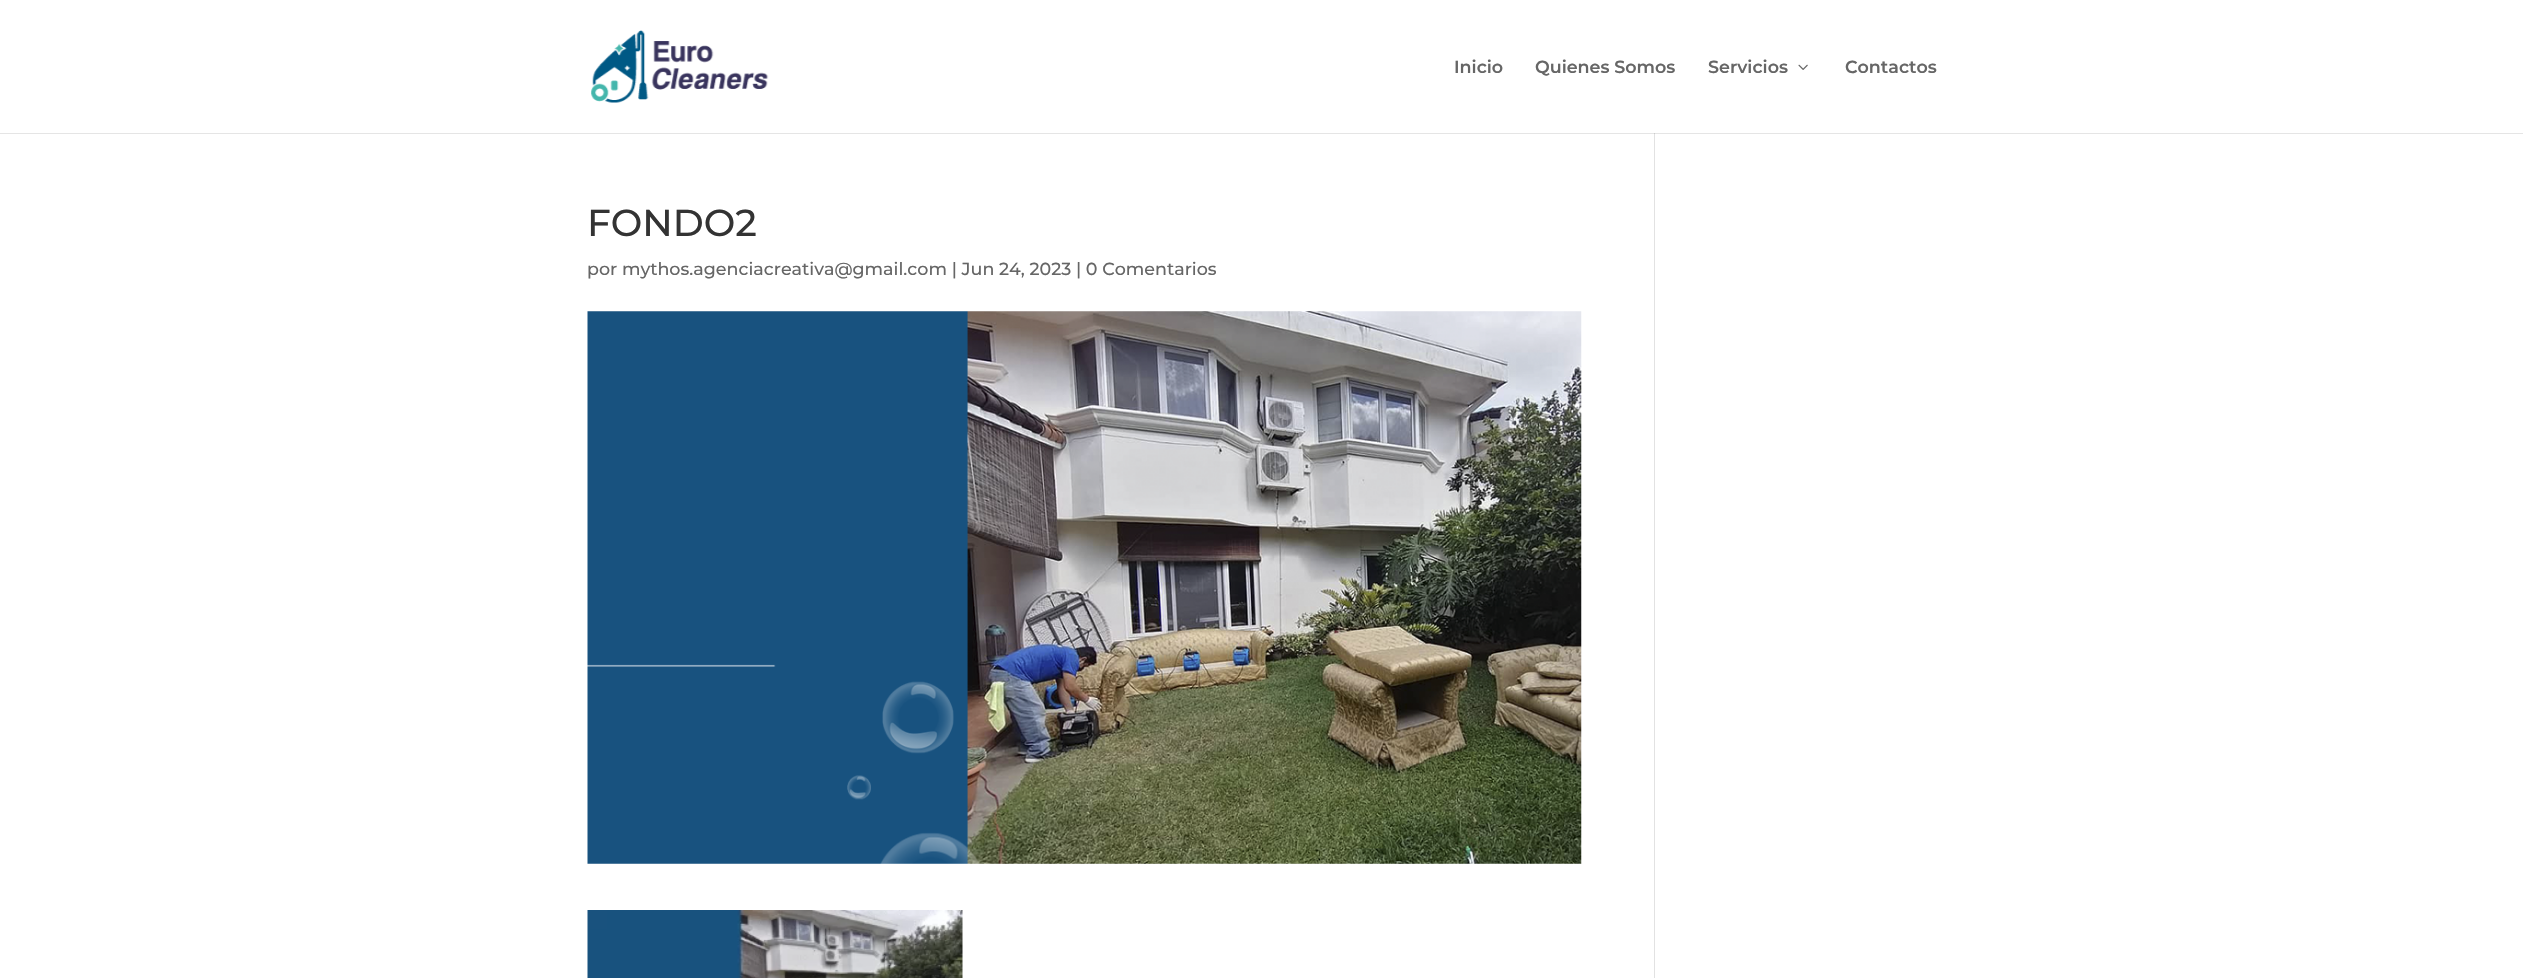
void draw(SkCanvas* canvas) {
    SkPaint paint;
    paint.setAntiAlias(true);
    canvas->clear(0xFFFFFFFF);
    paint.setColor(0xFFE2E2E2);
    canvas->drawRect(SkRect::MakeXYWH(1654, 133, 1, 845), paint);
    paint.setColor(0x1A000000);
    canvas->drawPath(SkPathBuilder().moveTo(0, 132).lineTo(0, 134).lineTo(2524, 134).lineTo(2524, 1).lineTo(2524, 132).close().detach(), paint);
    paint.setColor(0xFFFFFFFF);
    canvas->drawRect(SkRect::MakeXYWH(0, 132, 2523, 1), paint);
    canvas->drawImageRect(SkImages::DeferredFromEncodedData(SkData::MakeFromFileName("img1.png")), SkRect::MakeXYWH(591, 30, 178, 73), SkSamplingOptions());
    SkFont font1(fontMgr->matchFamilyStyle("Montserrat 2", SkFontStyle(100, SkFontStyle::kNormal_Width, SkFontStyle::kUpright_Slant)), 17.5f);
    font1.setSubpixel(true);
    paint.setColor(0xFF666666);
    canvas->drawString("Inicio", 1454, 73, font1, paint);
    canvas->drawString("Quienes Somos", 1535, 73, font1, paint);
    canvas->drawString("Servicios", 1708, 73, font1, paint);
    canvas->drawImageRect(SkImages::DeferredFromEncodedData(SkData::MakeFromFileName("img2.png")), SkRect::MakeXYWH(1798, 64, 10, 6), SkSamplingOptions());
    canvas->drawString("Contactos", 1845, 73, font1, paint);
    SkFont font2(fontMgr->matchFamilyStyle("Montserrat", SkFontStyle(100, SkFontStyle::kNormal_Width, SkFontStyle::kUpright_Slant)), 37.5f);
    font2.setSubpixel(true);
    paint.setColor(0xFF333333);
    canvas->drawString("FONDO2", 587, 236, font2, paint);
    SkFont font3(fontMgr->matchFamilyStyle("Montserrat", SkFontStyle(100, SkFontStyle::kNormal_Width, SkFontStyle::kUpright_Slant)), 17.5f);
    font3.setSubpixel(true);
    paint.setColor(0xFF666666);
    canvas->drawString("por mythos.agenciacreativa@gmail.com | Jun 24, 2023 | 0 Comentarios", 587, 275, font3, paint);
    canvas->drawImageRect(SkImages::DeferredFromEncodedData(SkData::MakeFromFileName("img3.png")), SkRect::MakeXYWH(587, 311, 995, 553), SkSamplingOptions());
    canvas->drawImageRect(SkImages::DeferredFromEncodedData(SkData::MakeFromFileName("img4.png")), SkRect::MakeXYWH(587, 910, 376, 68), SkSamplingOptions());
}
